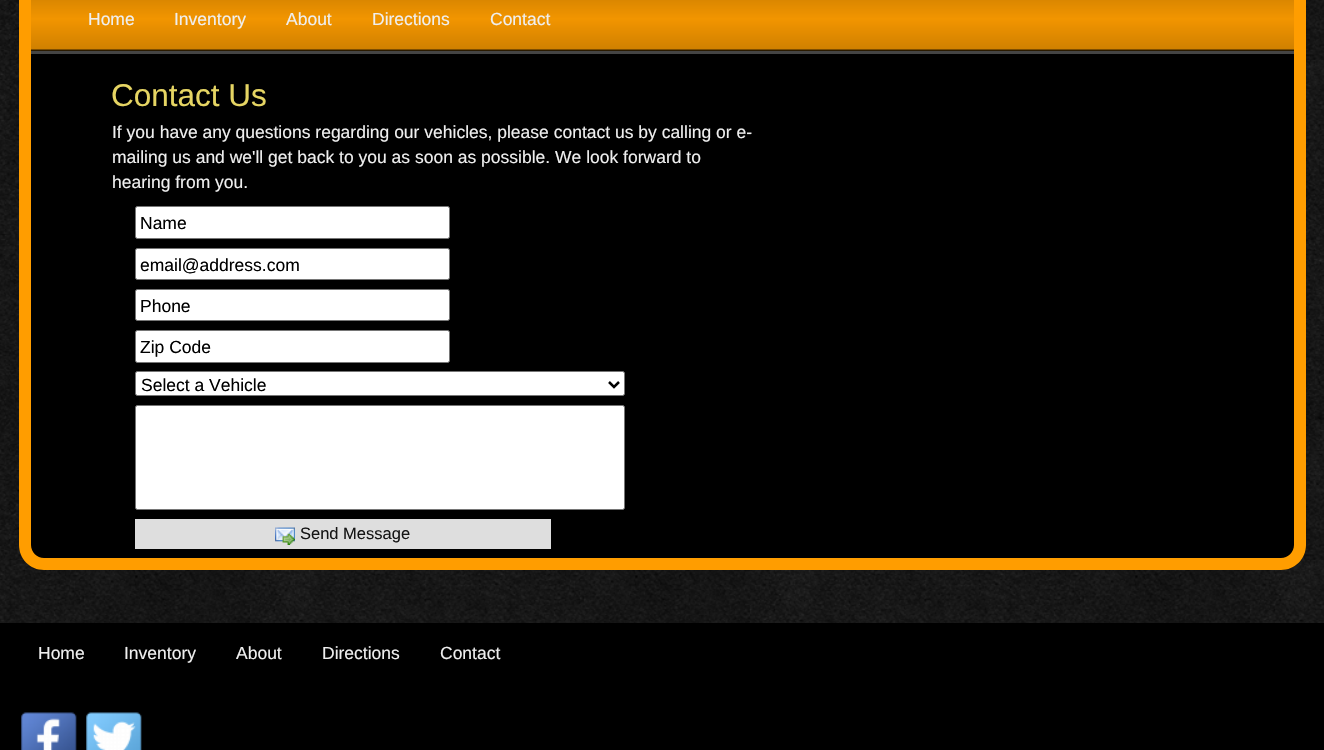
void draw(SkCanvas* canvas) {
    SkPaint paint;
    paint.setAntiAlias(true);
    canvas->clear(0xFFFFFFFF);
    canvas->drawImageRect(SkImages::DeferredFromEncodedData(SkData::MakeFromFileName("img1.png")), SkRect::MakeXYWH(0, 0, 1324, 623), SkSamplingOptions());
    paint.setColor(0xFFFF9D00);
    canvas->drawRect(SkRect::MakeXYWH(1294, 0, 12, 54), paint);
    canvas->drawRect(SkRect::MakeXYWH(19, 0, 12, 54), paint);
    {
        const SkColor colors[] = {0xFF000000, 0xFFD18100, 0xFFF29500, 0xFFD18100, 0xFF000000};
        const float stops[] = {0, 0.05f, 0.48f, 0.96f, 1};
        const SkPoint ends[] = {{663, -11}, {663, 51}};
        paint.setShader(SkGradientShader::MakeLinear(ends, colors, stops, 5, SkTileMode::kClamp));
        paint.setAlpha(255);
    }
    canvas->drawRect(SkRect::MakeXYWH(31, 0, 1263, 51), paint);
    paint.setShader(nullptr);
    paint.setColor(0xFF444444);
    canvas->drawRect(SkRect::MakeXYWH(31, 51, 1263, 3), paint);
    SkFont font1(fontMgr->matchFamilyStyle("Liberation Sans", SkFontStyle::Normal()), 17.5f);
    font1.setSubpixel(true);
    paint.setColor(0xFFEFEFEF);
    canvas->drawString("Home", 88, 25, font1, paint);
    canvas->drawString("Inventory", 174, 25, font1, paint);
    canvas->drawString("About", 286, 25, font1, paint);
    canvas->drawString("Directions", 372, 25, font1, paint);
    canvas->drawString("Contact", 490, 25, font1, paint);
    paint.setColor(0xFF000000);
    canvas->drawPath(SkPathBuilder().moveTo(19, 54).lineTo(1306, 54).lineTo(1306, 545).cubicTo(1306, 559, 1295, 570, 1281, 570).lineTo(44, 570).cubicTo(30, 570, 19, 559, 19, 545).close().detach(), paint);
    paint.setColor(0xFFFF9D00);
    canvas->drawPath(SkPathBuilder(SkPathFillType::kEvenOdd).moveTo(19, 54).lineTo(1306, 54).lineTo(1306, 545).cubicTo(1306, 559, 1295, 570, 1281, 570).lineTo(44, 570).cubicTo(30, 570, 19, 559, 19, 545).close().moveTo(31, 54).lineTo(1294, 54).lineTo(1294, 545).cubicTo(1294, 552, 1288, 558, 1281, 558).lineTo(44, 558).cubicTo(37, 558, 31, 552, 31, 545).close().detach(), paint);
    SkFont font2(fontMgr->matchFamilyStyle("Liberation Sans", SkFontStyle::Normal()), 31.5f);
    font2.setSubpixel(true);
    paint.setColor(0xFFE6D563);
    canvas->drawString("Contact Us", 111, 106, font2, paint);
    paint.setColor(0xFFEFEFEF);
    canvas->drawString("If you have any questions regarding our vehicles, please contact us by calling or e-", 112, 138, font1, paint);
    canvas->drawString("mailing us and we'll get back to you as soon as possible. We look forward to", 112, 163, font1, paint);
    canvas->drawString("hearing from you.", 112, 188, font1, paint);
    paint.setColor(0xFFFFFFFF);
    canvas->drawRoundRect(SkRect::MakeXYWH(135.5f, 206.5f, 314, 32), 2, 2, paint);
    paint.setStyle(SkPaint::kStroke_Style);
    paint.setStrokeWidth(1);
    paint.setColor(0xFF767676);
    canvas->drawRoundRect(SkRect::MakeXYWH(135.5f, 206.5f, 314, 32), 2, 2, paint);
    paint.setStyle(SkPaint::kFill_Style);
    paint.setColor(0xFF000000);
    canvas->drawString("Name", 140, 229, font1, paint);
    paint.setColor(0xFFFFFFFF);
    canvas->drawRoundRect(SkRect::MakeXYWH(135.5f, 248.5f, 314, 31), 2, 2, paint);
    paint.setStyle(SkPaint::kStroke_Style);
    paint.setColor(0xFF767676);
    canvas->drawRoundRect(SkRect::MakeXYWH(135.5f, 248.5f, 314, 31), 2, 2, paint);
    paint.setStyle(SkPaint::kFill_Style);
    paint.setColor(0xFF000000);
    canvas->drawString("email@address.com", 140, 271, font1, paint);
    paint.setColor(0xFFFFFFFF);
    canvas->drawRoundRect(SkRect::MakeXYWH(135.5f, 289.5f, 314, 31), 2, 2, paint);
    paint.setStyle(SkPaint::kStroke_Style);
    paint.setColor(0xFF767676);
    canvas->drawRoundRect(SkRect::MakeXYWH(135.5f, 289.5f, 314, 31), 2, 2, paint);
    paint.setStyle(SkPaint::kFill_Style);
    paint.setColor(0xFF000000);
    canvas->drawString("Phone", 140, 312, font1, paint);
    paint.setColor(0xFFFFFFFF);
    canvas->drawRoundRect(SkRect::MakeXYWH(135.5f, 330.5f, 314, 32), 2, 2, paint);
    paint.setStyle(SkPaint::kStroke_Style);
    paint.setColor(0xFF767676);
    canvas->drawRoundRect(SkRect::MakeXYWH(135.5f, 330.5f, 314, 32), 2, 2, paint);
    paint.setStyle(SkPaint::kFill_Style);
    paint.setColor(0xFF000000);
    canvas->drawString("Zip Code", 140, 353, font1, paint);
    paint.setColor(0xFFFFFFFF);
    canvas->drawRoundRect(SkRect::MakeXYWH(135.5f, 371.5f, 489, 24), 2, 2, paint);
    paint.setStyle(SkPaint::kStroke_Style);
    paint.setColor(0xFF767676);
    canvas->drawRoundRect(SkRect::MakeXYWH(135.5f, 371.5f, 489, 24), 2, 2, paint);
    paint.setStrokeWidth(2.5f);
    paint.setColor(0xFF000000);
    canvas->drawPath(SkPathBuilder().moveTo(609, 382).lineTo(614, 387).lineTo(619, 382).detach(), paint);
    paint.setStyle(SkPaint::kFill_Style);
    canvas->drawString("Select a Vehicle", 141, 391, font1, paint);
    paint.setColor(0xFFFFFFFF);
    canvas->drawRoundRect(SkRect::MakeXYWH(135.5f, 405.5f, 489, 104), 2, 2, paint);
    paint.setStyle(SkPaint::kStroke_Style);
    paint.setStrokeWidth(1);
    paint.setColor(0xFF767676);
    canvas->drawRoundRect(SkRect::MakeXYWH(135.5f, 405.5f, 489, 104), 2, 2, paint);
    paint.setStyle(SkPaint::kFill_Style);
    paint.setColor(0xFFDEDEDE);
    canvas->drawRect(SkRect::MakeXYWH(135, 519, 416, 30), paint);
    canvas->drawImageRect(SkImages::DeferredFromEncodedData(SkData::MakeFromFileName("img2.png")), SkRect::MakeXYWH(275, 527, 20, 18), SkSamplingOptions());
    SkFont font3(fontMgr->matchFamilyStyle("Liberation Sans", SkFontStyle::Normal()), 16.5f);
    font3.setSubpixel(true);
    paint.setColor(0xFF151515);
    canvas->drawString("Send Message", 300, 539, font3, paint);
    paint.setColor(0xFF000000);
    canvas->drawRect(SkRect::MakeXYWH(0, 623, 1324, 127), paint);
    paint.setColor(0xFFEFEFEF);
    canvas->drawString("Home", 38, 659, font1, paint);
    canvas->drawString("Inventory", 124, 659, font1, paint);
    canvas->drawString("About", 236, 659, font1, paint);
    canvas->drawString("Directions", 322, 659, font1, paint);
    canvas->drawString("Contact", 440, 659, font1, paint);
    canvas->drawImageRect(SkImages::DeferredFromEncodedData(SkData::MakeFromFileName("img3.png")), SkRect::MakeXYWH(21, 712, 56, 38), SkSamplingOptions());
    canvas->drawImageRect(SkImages::DeferredFromEncodedData(SkData::MakeFromFileName("img4.png")), SkRect::MakeXYWH(86, 712, 56, 38), SkSamplingOptions());
}
